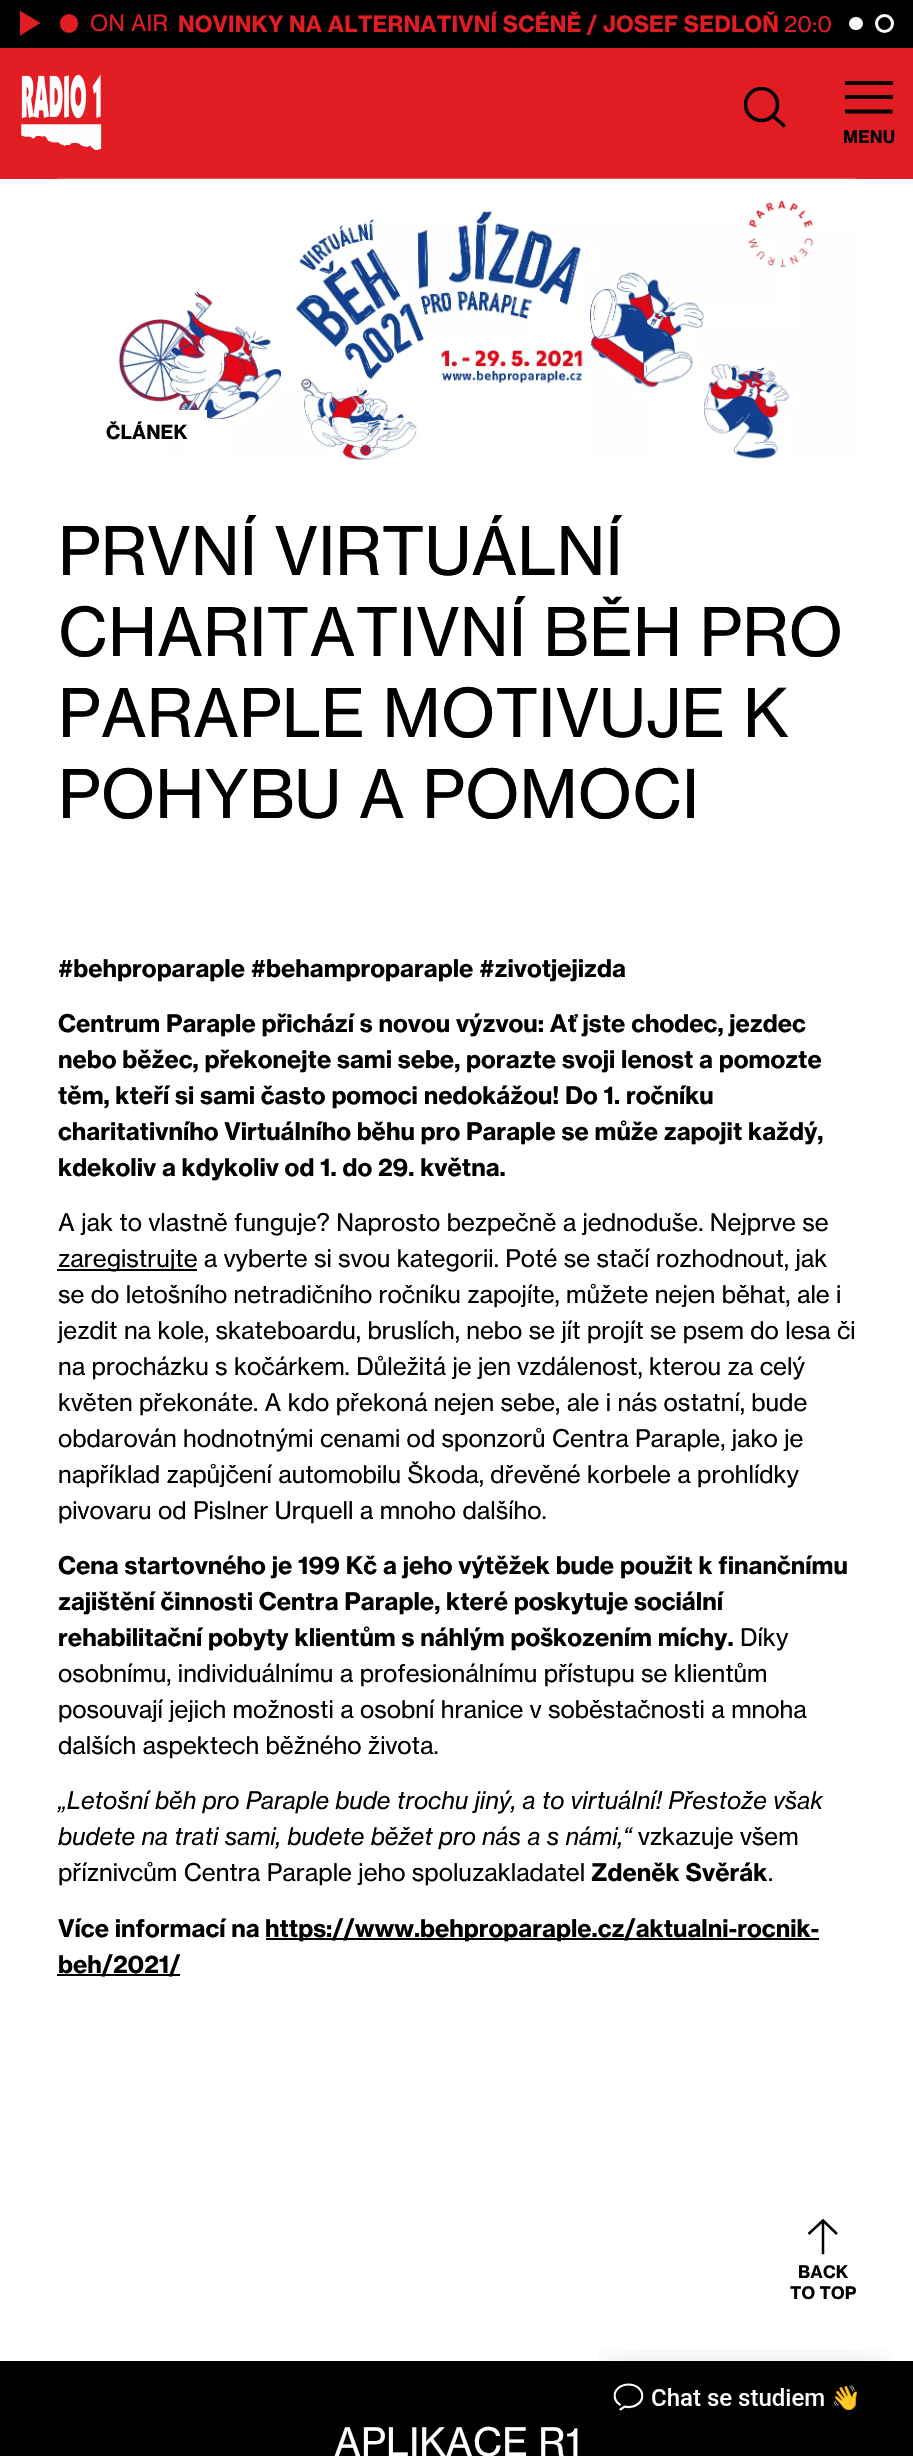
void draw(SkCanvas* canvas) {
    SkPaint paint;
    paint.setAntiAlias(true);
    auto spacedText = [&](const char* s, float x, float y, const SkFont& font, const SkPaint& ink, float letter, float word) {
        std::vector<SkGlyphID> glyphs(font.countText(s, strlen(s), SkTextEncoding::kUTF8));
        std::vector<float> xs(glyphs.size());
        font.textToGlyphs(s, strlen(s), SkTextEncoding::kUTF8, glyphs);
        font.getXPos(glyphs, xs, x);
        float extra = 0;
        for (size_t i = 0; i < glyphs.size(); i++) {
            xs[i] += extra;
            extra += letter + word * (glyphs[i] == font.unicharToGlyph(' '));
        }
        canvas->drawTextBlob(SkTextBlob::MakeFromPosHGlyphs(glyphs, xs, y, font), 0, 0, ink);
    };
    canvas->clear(0xFFFFFFFF);
    paint.setColor(0xFF000000);
    canvas->drawRect(SkRect::MakeXYWH(0, 0, 913, 48), paint);
    canvas->save();
    canvas->clipRect(SkRect::MakeXYWH(20, 11, 21, 25));
    paint.setColor(0xFFE21C23);
    canvas->drawPath(SkPathBuilder().moveTo(40.5f, 23).lineTo(19.5f, 36).lineTo(19.5f, 10.5f).close().detach(), paint);
    canvas->restore();
    canvas->drawRoundRect(SkRect::MakeXYWH(60, 14, 18, 19), 9, 9, paint);
    SkFont font1(fontMgr->matchFamilyStyle("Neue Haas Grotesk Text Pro", SkFontStyle::Normal()), 22.1f);
    font1.setSubpixel(true);
    spacedText("ON AIR", 90, 31, font1, paint, 0.15f, 0);
    SkFont font2(fontMgr->matchFamilyStyle("Neue Haas Grotesk Text Pro", SkFontStyle::Bold()), 22.1f);
    font2.setSubpixel(true);
    spacedText("NOVINKY NA ALTERNATIVNÍ SCÉNĚ / JOSEF SEDLOŇ", 178, 32, font2, paint, 0.15f, 0);
    spacedText("20:0", 784, 32, font1, paint, 0.15f, 0);
    paint.setColor(0xFFFFFFFF);
    canvas->drawRoundRect(SkRect::MakeXYWH(847.5f, 15.5f, 17, 16), 8, 8, paint);
    paint.setStyle(SkPaint::kStroke_Style);
    paint.setStrokeWidth(3);
    paint.setColor(0xFF000000);
    canvas->drawRoundRect(SkRect::MakeXYWH(847.5f, 15.5f, 17, 16), 8, 8, paint);
    paint.setColor(0xFFFFFFFF);
    canvas->drawCircle(884.5f, 23.5f, 8, paint);
    paint.setStyle(SkPaint::kFill_Style);
    paint.setColor(0xFFE21C23);
    canvas->drawRect(SkRect::MakeXYWH(0, 48, 913, 131), paint);
    canvas->drawImageRect(SkImages::DeferredFromEncodedData(SkData::MakeFromFileName("img1.png")), SkRect::MakeXYWH(21, 74, 81, 77), SkSamplingOptions());
    canvas->save();
    canvas->clipRect(SkRect::MakeXYWH(744, 87, 42, 42));
    paint.setStyle(SkPaint::kStroke_Style);
    paint.setStrokeWidth(3.6f);
    paint.setColor(0xFF000000);
    canvas->drawCircle(761.5f, 104.5f, 16, paint);
    canvas->restore();
    canvas->drawPath(SkPathBuilder().moveTo(773.5f, 116.5f).lineTo(785, 126.5f).detach(), paint);
    paint.setStyle(SkPaint::kFill_Style);
    paint.setColor(0xFF0B0102);
    canvas->drawRect(SkRect::MakeXYWH(845, 81, 48, 4), paint);
    canvas->drawRect(SkRect::MakeXYWH(845, 95, 48, 4), paint);
    canvas->save();
    canvas->clipRect(SkRect::MakeXYWH(845, 78, 48, 39));
    paint.setStyle(SkPaint::kStroke_Style);
    paint.setStrokeWidth(3.8f);
    paint.setColor(0xFF000000);
    canvas->drawPath(SkPathBuilder().moveTo(844.5f, 111.5f).lineTo(892.5f, 111.5f).detach(), paint);
    canvas->restore();
    SkFont font3(fontMgr->matchFamilyStyle("Neue Haas Grotesk Text Pro", SkFontStyle::Bold()), 17);
    font3.setSubpixel(true);
    paint.setStyle(SkPaint::kFill_Style);
    spacedText("MENU", 843, 143, font3, paint, 0.15f, 0);
    canvas->drawImageRect(SkImages::DeferredFromEncodedData(SkData::MakeFromFileName("img2.png")), SkRect::MakeXYWH(57, 178, 800, 282), SkSamplingOptions());
    paint.setColor(0xFFFFFFFF);
    canvas->drawRect(SkRect::MakeXYWH(177, 410, 30, 11), paint);
    SkFont font4(fontMgr->matchFamilyStyle("Neue Haas Grotesk Text Pro", SkFontStyle::Bold()), 19);
    font4.setSubpixel(true);
    paint.setColor(0xFF000000);
    spacedText("ČLÁNEK", 106, 439, font4, paint, 0.15f, 0);
    SkFont font5(fontMgr->matchFamilyStyle("Neue Haas Grotesk Text Pro", SkFontStyle::Normal()), 66);
    font5.setSubpixel(true);
    canvas->drawString("PRVNÍ VIRTUÁLNÍ", 58, 575, font5, paint);
    canvas->drawString("CHARITATIVNÍ BĚH PRO", 58, 656, font5, paint);
    canvas->drawString("PARAPLE MOTIVUJE K", 58, 737, font5, paint);
    canvas->drawString("POHYBU A POMOCI", 58, 818, font5, paint);
    SkFont font6(fontMgr->matchFamilyStyle("Neue Haas Grotesk Text Pro", SkFontStyle::Bold()), 24);
    font6.setSubpixel(true);
    canvas->drawString("#behproparaple #behamproparaple #zivotjejizda", 58, 977, font6, paint);
    canvas->drawString("Centrum Paraple přichází s novou výzvou: Ať jste chodec, jezdec", 58, 1032, font6, paint);
    canvas->drawString("nebo běžec, překonejte sami sebe, porazte svoji lenost a pomozte", 58, 1068, font6, paint);
    canvas->drawString("těm, kteří si sami často pomoci nedokážou! Do 1. ročníku", 58, 1104, font6, paint);
    canvas->drawString("charitativního Virtuálního běhu pro Paraple se může zapojit každý,", 58, 1140, font6, paint);
    canvas->drawString("kdekoliv a kdykoliv od 1. do 29. května.", 58, 1176, font6, paint);
    SkFont font7(fontMgr->matchFamilyStyle("Neue Haas Grotesk Text Pro", SkFontStyle::Normal()), 24);
    font7.setSubpixel(true);
    canvas->drawString("A jak to vlastně funguje? Naprosto bezpečně a jednoduše. Nejprve se", 58, 1231, font7, paint);
    canvas->drawRect(SkRect::MakeXYWH(57, 1269, 140, 2), paint);
    canvas->drawString("zaregistrujte a vyberte si svou kategorii. Poté se stačí rozhodnout, jak", 58, 1267, font7, paint);
    canvas->drawString("se do letošního netradičního ročníku zapojíte, můžete nejen běhat, ale i", 58, 1303, font7, paint);
    canvas->drawString("jezdit na kole, skateboardu, bruslích, nebo se jít projít se psem do lesa či", 58, 1339, font7, paint);
    canvas->drawString("na procházku s kočárkem. Důležitá je jen vzdálenost, kterou za celý", 58, 1375, font7, paint);
    canvas->drawString("květen překonáte. A kdo překoná nejen sebe, ale i nás ostatní, bude", 58, 1411, font7, paint);
    canvas->drawString("obdarován hodnotnými cenami od sponzorů Centra Paraple, jako je", 58, 1447, font7, paint);
    canvas->drawString("například zapůjčení automobilu Škoda, dřevěné korbele a prohlídky", 58, 1483, font7, paint);
    canvas->drawString("pivovaru od Pislner Urquell a mnoho dalšího.", 58, 1519, font7, paint);
    canvas->drawString("Cena startovného je 199 Kč a jeho výtěžek bude použit k finančnímu", 58, 1574, font6, paint);
    canvas->drawString("zajištění činnosti Centra Paraple, které poskytuje sociální", 58, 1610, font6, paint);
    canvas->drawString("rehabilitační pobyty klientům s náhlým poškozením míchy.", 58, 1646, font6, paint);
    canvas->drawString("Díky", 740, 1646, font7, paint);
    canvas->drawString("osobnímu, individuálnímu a profesionálnímu přístupu se klientům", 58, 1682, font7, paint);
    canvas->drawString("posouvají jejich možnosti a osobní hranice v soběstačnosti a mnoha", 58, 1718, font7, paint);
    canvas->drawString("dalších aspektech běžného života.", 58, 1754, font7, paint);
    SkFont font8(fontMgr->matchFamilyStyle("Neue Haas Grotesk Text Pro", SkFontStyle::Italic()), 24);
    font8.setSubpixel(true);
    canvas->drawString("„Letošní běh pro Paraple bude trochu jiný, a to virtuální! Přestože však", 58, 1809, font8, paint);
    canvas->drawString("budete na trati sami, budete běžet pro nás a s námi,“", 58, 1845, font8, paint);
    canvas->drawString("vzkazuje všem", 638, 1845, font7, paint);
    canvas->drawString("příznivcům Centra Paraple jeho spoluzakladatel", 58, 1881, font7, paint);
    canvas->drawString("Zdeněk Svěrák", 591, 1881, font6, paint);
    canvas->drawString(".", 768, 1881, font7, paint);
    canvas->drawString("Více informací na", 58, 1937, font6, paint);
    canvas->drawRect(SkRect::MakeXYWH(266, 1938, 553, 2), paint);
    canvas->drawString("https://www.behproparaple.cz/aktualni-rocnik-", 265, 1937, font6, paint);
    canvas->drawRect(SkRect::MakeXYWH(57, 1974, 123, 2), paint);
    canvas->drawString("beh/2021/", 58, 1973, font6, paint);
    paint.setStyle(SkPaint::kStroke_Style);
    paint.setStrokeWidth(2.5f);
    canvas->drawPath(SkPathBuilder().moveTo(837, 2234).lineTo(823, 2220.5f).lineTo(808.5f, 2234).detach(), paint);
    canvas->save();
    canvas->clipPath(SkPathBuilder().moveTo(808, 2254.5f).lineTo(808, 2219).lineTo(838, 2219).lineTo(838, 2254.5f).close().detach(), true);
    canvas->drawPath(SkPathBuilder().moveTo(823, 2220.5f).lineTo(823, 2254.5f).detach(), paint);
    canvas->restore();
    paint.setStyle(SkPaint::kFill_Style);
    spacedText("BACK", 798, 2278, font3, paint, 0.15f, 0);
    spacedText("TO TOP", 790, 2299, font3, paint, 0.15f, 0);
    canvas->drawRect(SkRect::MakeXYWH(0, 2361, 913, 95), paint);
    canvas->drawImageRect(SkImages::DeferredFromEncodedData(SkData::MakeFromFileName("img3.png")), SkRect::MakeXYWH(598, 2349, 294, 62), SkSamplingOptions());
    SkFont font9(fontMgr->matchFamilyStyle("Neue Haas Grotesk Text Pro", SkFontStyle::Normal()), 38.5f);
    font9.setSubpixel(true);
    paint.setColor(0xFFFFFFFF);
    spacedText("APLIKACE R1", 334, 2456, font9, paint, 0.15f, 0);
}
